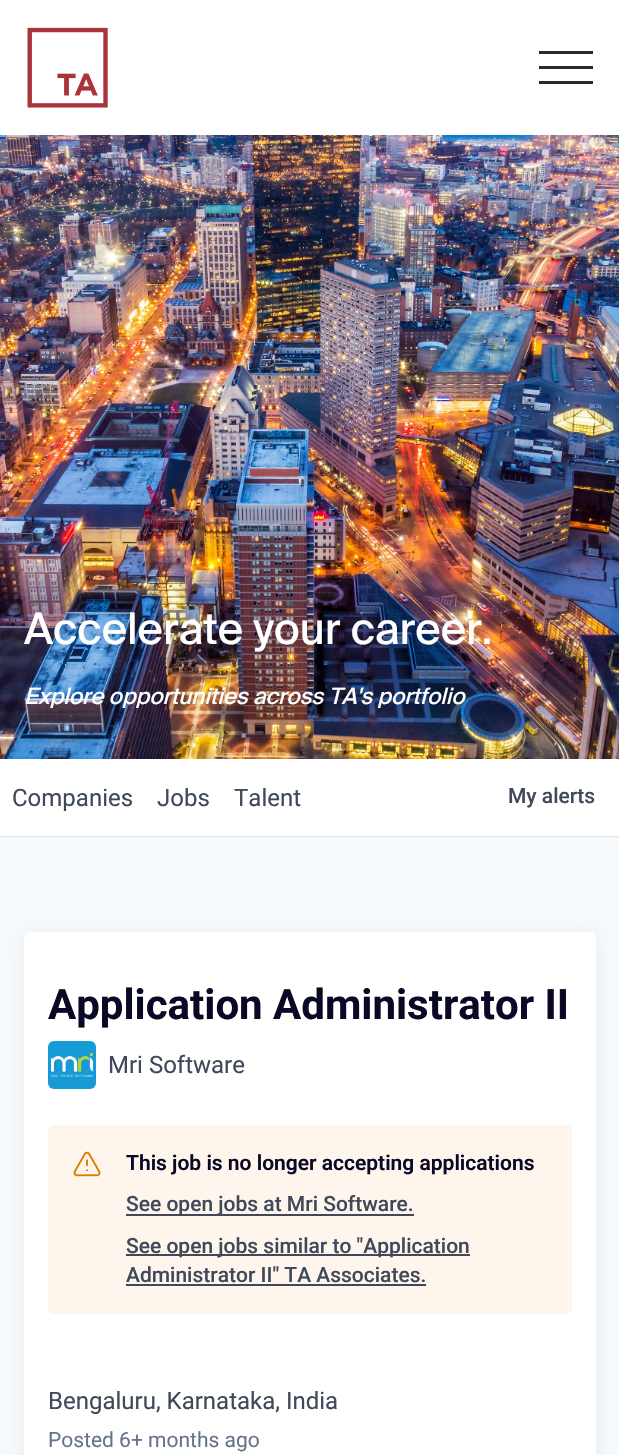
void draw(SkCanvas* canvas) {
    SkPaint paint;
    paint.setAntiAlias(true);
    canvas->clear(0xFFF7FAFC);
    paint.setColor(0xFFFFFFFF);
    canvas->drawRect(SkRect::MakeXYWH(0, 0, 619, 135), paint);
    canvas->drawImageRect(SkImages::DeferredFromEncodedData(SkData::MakeFromFileName("img1.png")), SkRect::MakeXYWH(27, 27, 81, 81), SkSamplingOptions());
    paint.setColor(0xFF282828);
    canvas->drawRect(SkRect::MakeXYWH(539, 51, 54, 3), paint);
    canvas->drawRect(SkRect::MakeXYWH(539, 66, 54, 3), paint);
    canvas->drawRect(SkRect::MakeXYWH(539, 81, 54, 3), paint);
    canvas->drawImageRect(SkImages::DeferredFromEncodedData(SkData::MakeFromFileName("img2.png")), SkRect::MakeXYWH(0, 135, 619, 624), SkSamplingOptions());
    SkFont font1(fontMgr->matchFamilyStyle("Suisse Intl", SkFontStyle::Normal()), 43.5f);
    font1.setSubpixel(true);
    paint.setColor(0xFFFFFFFF);
    canvas->drawString("Accelerate your career.", 24, 644, font1, paint);
    SkFont font2(fontMgr->matchFamilyStyle("Suisse Intl", SkFontStyle::Italic()), 22.5f);
    font2.setSubpixel(true);
    canvas->drawString("Explore opportunities across TA's portfolio", 24, 704, font2, paint);
    paint.setColor(0xFFE5E5E5);
    canvas->drawPath(SkPathBuilder().moveTo(0, 836).lineTo(0, 837).lineTo(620, 837).lineTo(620, 761).lineTo(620, 836).close().detach(), paint);
    paint.setColor(0xFFFFFFFF);
    canvas->drawRect(SkRect::MakeXYWH(0, 759, 619, 77), paint);
    SkFont font3(fontMgr->matchFamilyStyle("Roboto", SkFontStyle::Normal()), 24);
    font3.setSubpixel(true);
    paint.setColor(0xFF3F495A);
    canvas->drawString("Companies", 12, 806, font3, paint);
    canvas->drawString("Jobs", 157, 806, font3, paint);
    canvas->drawString("Talent", 234, 806, font3, paint);
    SkFont font4(fontMgr->matchFamilyStyle("Roboto", SkFontStyle(500, SkFontStyle::kNormal_Width, SkFontStyle::kUpright_Slant)), 21);
    font4.setSubpixel(true);
    canvas->drawString("My alerts", 508, 803, font4, paint);
    paint.setColor(0x0F1B2432);
    paint.setMaskFilter(SkMaskFilter::MakeBlur(kNormal_SkBlurStyle, 12));
    canvas->drawRoundRect(SkRect::MakeXYWH(24, 933, 572, 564), 6, 6, paint);
    paint.setMaskFilter(nullptr);
    paint.setColor(0xFFFFFFFF);
    canvas->drawRoundRect(SkRect::MakeXYWH(24, 932, 572, 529), 6, 6, paint);
    SkFont font5(fontMgr->matchFamilyStyle("Roboto", SkFontStyle::Bold()), 42);
    font5.setSubpixel(true);
    paint.setColor(0xFF090925);
    canvas->drawString("Application Administrator II", 48, 1019, font5, paint);
    canvas->drawImageRect(SkImages::DeferredFromEncodedData(SkData::MakeFromFileName("img3.png")), SkRect::MakeXYWH(48, 1041, 48, 48), SkSamplingOptions());
    paint.setColor(0xFF3F495A);
    canvas->drawString("Mri Software", 108, 1073, font3, paint);
    paint.setColor(0xFFFEF5EC);
    canvas->drawRoundRect(SkRect::MakeXYWH(48, 1125, 524, 189), 6, 6, paint);
    canvas->drawImageRect(SkImages::DeferredFromEncodedData(SkData::MakeFromFileName("img4.png")), SkRect::MakeXYWH(73, 1151, 28, 26), SkSamplingOptions());
    SkFont font6(fontMgr->matchFamilyStyle("Roboto", SkFontStyle(600, SkFontStyle::kNormal_Width, SkFontStyle::kUpright_Slant)), 21);
    font6.setSubpixel(true);
    paint.setColor(0xFF090925);
    canvas->drawString("This job is no longer accepting applications", 126, 1170, font6, paint);
    paint.setColor(0xFF3F495A);
    canvas->drawRect(SkRect::MakeXYWH(126, 1214, 288, 2), paint);
    canvas->drawString("See open jobs at Mri Software.", 126, 1211, font4, paint);
    canvas->drawRect(SkRect::MakeXYWH(126, 1254, 344, 2), paint);
    canvas->drawString("See open jobs similar to \"Application", 126, 1253, font4, paint);
    canvas->drawString("Administrator II\" TA Associates.", 126, 1282, font4, paint);
    canvas->drawRect(SkRect::MakeXYWH(126, 1284, 300, 2), paint);
    canvas->drawString("Bengaluru, Karnataka, India", 48, 1409, font3, paint);
    SkFont font7(fontMgr->matchFamilyStyle("Roboto", SkFontStyle::Normal()), 21);
    font7.setSubpixel(true);
    paint.setColor(0xFF67738B);
    canvas->drawString("Posted 6+ months ago", 48, 1447, font7, paint);
}
